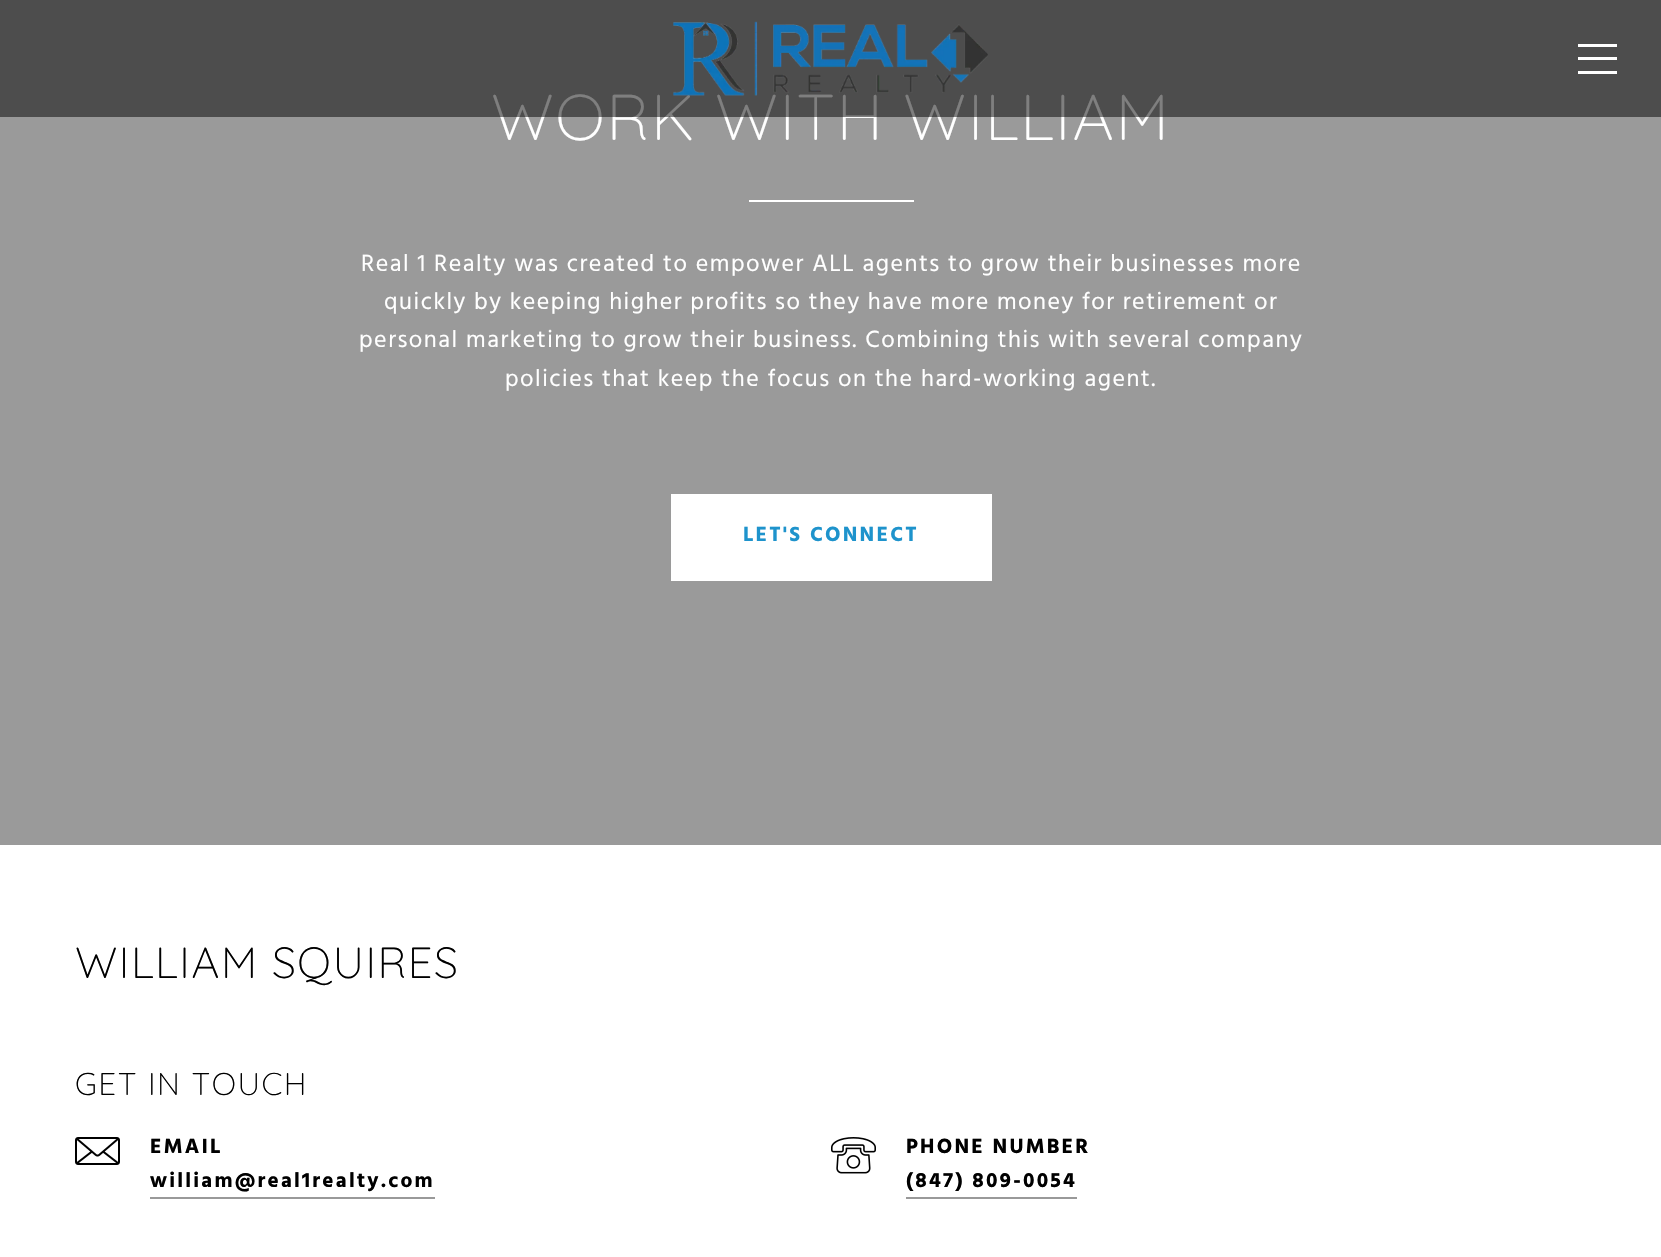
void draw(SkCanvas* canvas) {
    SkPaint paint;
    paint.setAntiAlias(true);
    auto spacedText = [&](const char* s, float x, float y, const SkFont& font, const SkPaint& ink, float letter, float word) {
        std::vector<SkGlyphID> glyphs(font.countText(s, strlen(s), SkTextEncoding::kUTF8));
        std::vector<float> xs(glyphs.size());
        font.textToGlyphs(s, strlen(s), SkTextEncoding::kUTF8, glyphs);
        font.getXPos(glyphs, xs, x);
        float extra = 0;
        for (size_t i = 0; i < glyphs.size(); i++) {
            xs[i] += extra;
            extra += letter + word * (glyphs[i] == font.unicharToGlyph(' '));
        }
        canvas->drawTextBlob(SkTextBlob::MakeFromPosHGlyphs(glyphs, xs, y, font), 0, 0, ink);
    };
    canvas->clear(0xFFFFFFFF);
    paint.setColor(0xFF9A9A9A);
    canvas->drawRect(SkRect::MakeXYWH(0, 0, 1661, 845), paint);
    SkFont font1(fontMgr->matchFamilyStyle("Quicksand", SkFontStyle(300, SkFontStyle::kNormal_Width, SkFontStyle::kUpright_Slant)), 64.5f);
    font1.setSubpixel(true);
    paint.setColor(0xFFFFFFFF);
    spacedText("WORK WITH WILLIAM", 491, 140, font1, paint, 1.5f, 0);
    paint.setColor(0x80000000);
    canvas->drawRect(SkRect::MakeXYWH(0, 0, 1661, 117), paint);
    canvas->drawImageRect(SkImages::DeferredFromEncodedData(SkData::MakeFromFileName("img1.png")), SkRect::MakeXYWH(673, 21, 315, 75), SkSamplingOptions());
    paint.setColor(0xFFFFFFFF);
    canvas->drawRect(SkRect::MakeXYWH(1578, 57, 39, 3), paint);
    canvas->drawRect(SkRect::MakeXYWH(1578, 44, 39, 3), paint);
    canvas->drawRect(SkRect::MakeXYWH(1578, 71, 39, 3), paint);
    canvas->drawRect(SkRect::MakeXYWH(749, 200, 165, 2), paint);
    SkFont font2(fontMgr->matchFamilyStyle("Hind", SkFontStyle::Normal()), 24);
    font2.setSubpixel(true);
    spacedText("Real 1 Realty was created to empower ALL agents to grow their businesses more", 361, 271, font2, paint, 1.5f, 0);
    spacedText("quickly by keeping higher profits so they have more money for retirement or", 384, 309, font2, paint, 1.5f, -0.25f);
    spacedText("personal marketing to grow their business. Combining this with several company", 359, 347, font2, paint, 1.5f, 0);
    spacedText("policies that keep the focus on the hard-working agent.", 505, 386, font2, paint, 1.5f, 0);
    canvas->drawRect(SkRect::MakeXYWH(671, 494, 321, 87), paint);
    SkFont font3(fontMgr->matchFamilyStyle("Hind", SkFontStyle::Bold()), 21);
    font3.setSubpixel(true);
    paint.setColor(0xFF1E93CC);
    spacedText("LET'S CONNECT", 743, 541, font3, paint, 2.25f, 0);
    SkFont font4(fontMgr->matchFamilyStyle("Quicksand", SkFontStyle(300, SkFontStyle::kNormal_Width, SkFontStyle::kUpright_Slant)), 43.5f);
    font4.setSubpixel(true);
    paint.setColor(0xFF000000);
    spacedText("WILLIAM SQUIRES", 75, 978, font4, paint, 1.5f, 0);
    SkFont font5(fontMgr->matchFamilyStyle("Quicksand", SkFontStyle(300, SkFontStyle::kNormal_Width, SkFontStyle::kUpright_Slant)), 31.5f);
    font5.setSubpixel(true);
    spacedText("GET IN TOUCH", 75, 1095, font5, paint, 1.5f, 0);
    canvas->drawImageRect(SkImages::DeferredFromEncodedData(SkData::MakeFromFileName("img2.png")), SkRect::MakeXYWH(75, 1137, 45, 28), SkSamplingOptions());
    spacedText("EMAIL", 150, 1153, font3, paint, 2.25f, 0);
    spacedText("william@real1realty.com", 150, 1187, font3, paint, 2.25f, 0);
    paint.setColor(0xFF999999);
    canvas->drawRect(SkRect::MakeXYWH(150, 1197, 285, 2), paint);
    canvas->drawImageRect(SkImages::DeferredFromEncodedData(SkData::MakeFromFileName("img3.png")), SkRect::MakeXYWH(831, 1137, 45, 37), SkSamplingOptions());
    paint.setColor(0xFF000000);
    spacedText("PHONE NUMBER", 906, 1153, font3, paint, 2.25f, 0);
    spacedText("(847) 809-0054", 906, 1187, font3, paint, 2.25f, 0);
    paint.setColor(0xFF999999);
    canvas->drawRect(SkRect::MakeXYWH(906, 1197, 171, 2), paint);
}
